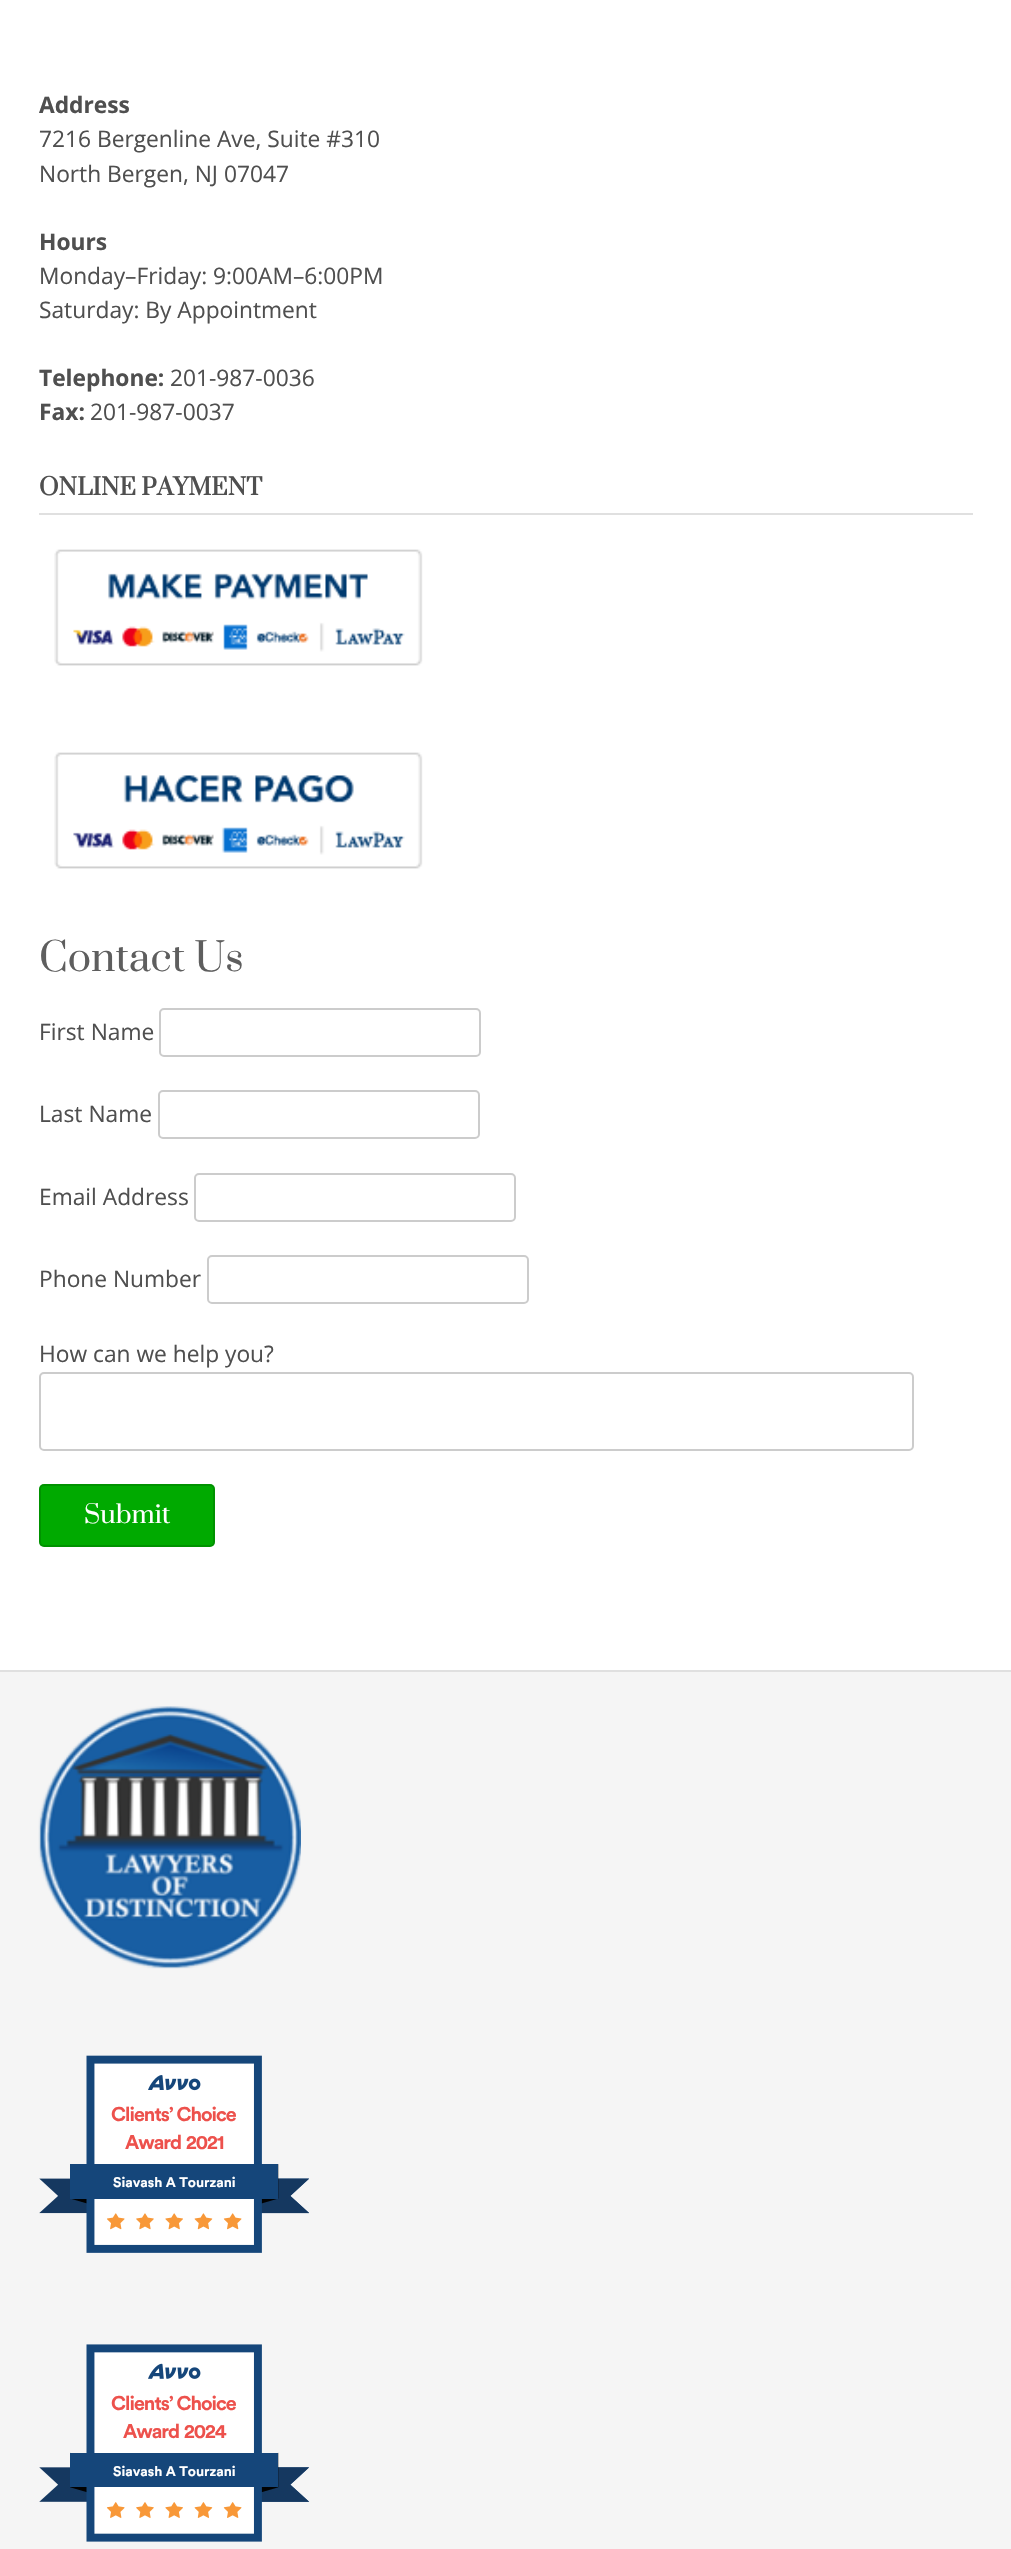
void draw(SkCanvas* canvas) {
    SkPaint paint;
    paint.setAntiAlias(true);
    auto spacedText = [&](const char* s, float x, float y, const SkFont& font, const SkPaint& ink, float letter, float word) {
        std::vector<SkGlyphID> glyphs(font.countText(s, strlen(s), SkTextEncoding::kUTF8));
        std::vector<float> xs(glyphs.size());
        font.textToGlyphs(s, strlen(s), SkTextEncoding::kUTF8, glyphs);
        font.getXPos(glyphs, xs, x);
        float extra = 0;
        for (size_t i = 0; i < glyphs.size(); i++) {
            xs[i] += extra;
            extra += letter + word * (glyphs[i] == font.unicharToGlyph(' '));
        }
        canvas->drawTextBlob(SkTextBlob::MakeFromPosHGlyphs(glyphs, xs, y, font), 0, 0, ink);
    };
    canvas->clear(0xFFFFFFFF);
    SkFont font1(fontMgr->matchFamilyStyle("Open Sans", SkFontStyle::Bold()), 22.75f);
    font1.setSubpixel(true);
    paint.setColor(0xFF4F4F4F);
    canvas->drawString("Address", 39, 113, font1, paint);
    SkFont font2(fontMgr->matchFamilyStyle("Open Sans", SkFontStyle::Normal()), 22.75f);
    font2.setSubpixel(true);
    canvas->drawString("7216 Bergenline Ave, Suite #310", 39, 147, font2, paint);
    canvas->drawString("North Bergen, NJ 07047", 39, 182, font2, paint);
    canvas->drawString("Hours", 39, 250, font1, paint);
    canvas->drawString("Monday–Friday: 9:00AM–6:00PM", 39, 284, font2, paint);
    canvas->drawString("Saturday: By Appointment", 39, 318, font2, paint);
    canvas->drawString("Telephone:", 39, 386, font1, paint);
    canvas->drawString("201-987-0036", 170, 386, font2, paint);
    canvas->drawString("Fax:", 39, 420, font1, paint);
    canvas->drawString("201-987-0037", 90, 420, font2, paint);
    paint.setColor(0xFFE0E0E0);
    canvas->drawRect(SkRect::MakeXYWH(39, 513, 934, 2), paint);
    SkFont font3(fontMgr->matchFamilyStyle("Prata", SkFontStyle::Bold()), 22.75f);
    font3.setSubpixel(true);
    paint.setColor(0xFF4F4F4F);
    canvas->drawString("ONLINE PAYMENT", 39, 495, font3, paint);
    canvas->drawImageRect(SkImages::DeferredFromEncodedData(SkData::MakeFromFileName("img1.png")), SkRect::MakeXYWH(54, 549, 369, 117), SkSamplingOptions());
    canvas->drawImageRect(SkImages::DeferredFromEncodedData(SkData::MakeFromFileName("img2.png")), SkRect::MakeXYWH(54, 752, 369, 117), SkSamplingOptions());
    SkFont font4(fontMgr->matchFamilyStyle("Prata", SkFontStyle::Normal()), 38.5f);
    font4.setSubpixel(true);
    paint.setColor(0xFF5E5E5E);
    canvas->drawString("Contact Us", 39, 971, font4, paint);
    paint.setColor(0xFF4F4F4F);
    canvas->drawString("First Name", 39, 1040, font2, paint);
    paint.setStyle(SkPaint::kStroke_Style);
    paint.setStrokeWidth(2);
    paint.setColor(0xFFCCCCCC);
    canvas->drawRoundRect(SkRect::MakeXYWH(160, 1009, 320, 47), 4, 4, paint);
    paint.setStyle(SkPaint::kFill_Style);
    paint.setColor(0xFF4F4F4F);
    canvas->drawString("Last Name", 39, 1122, font2, paint);
    paint.setStyle(SkPaint::kStroke_Style);
    paint.setColor(0xFFCCCCCC);
    canvas->drawRoundRect(SkRect::MakeXYWH(159, 1091, 320, 47), 4, 4, paint);
    paint.setStyle(SkPaint::kFill_Style);
    paint.setColor(0xFF4F4F4F);
    canvas->drawString("Email Address", 39, 1205, font2, paint);
    paint.setStyle(SkPaint::kStroke_Style);
    paint.setColor(0xFFCCCCCC);
    canvas->drawRoundRect(SkRect::MakeXYWH(195, 1174, 320, 47), 4, 4, paint);
    paint.setStyle(SkPaint::kFill_Style);
    paint.setColor(0xFF4F4F4F);
    canvas->drawString("Phone Number", 39, 1287, font2, paint);
    paint.setStyle(SkPaint::kStroke_Style);
    paint.setColor(0xFFCCCCCC);
    canvas->drawRoundRect(SkRect::MakeXYWH(208, 1256, 320, 47), 4, 4, paint);
    paint.setStyle(SkPaint::kFill_Style);
    paint.setColor(0xFF4F4F4F);
    canvas->drawString("How can we help you?", 39, 1362, font2, paint);
    paint.setStyle(SkPaint::kStroke_Style);
    paint.setColor(0xFFCCCCCC);
    canvas->drawRoundRect(SkRect::MakeXYWH(40, 1373, 873, 77), 4, 4, paint);
    paint.setStyle(SkPaint::kFill_Style);
    paint.setColor(0xFF00AA00);
    canvas->drawRoundRect(SkRect::MakeXYWH(39, 1484, 176, 63), 5, 5, paint);
    paint.setStyle(SkPaint::kStroke_Style);
    paint.setColor(0x24000000);
    canvas->drawRoundRect(SkRect::MakeXYWH(40, 1485, 174, 61), 4, 4, paint);
    SkFont font5(fontMgr->matchFamilyStyle("Prata", SkFontStyle::Normal()), 24.5f);
    font5.setSubpixel(true);
    paint.setStyle(SkPaint::kFill_Style);
    paint.setColor(0xFFFFFFFF);
    canvas->drawString("Submit", 84, 1523, font5, paint);
    paint.setColor(0xFFF5F5F5);
    canvas->drawRect(SkRect::MakeXYWH(0, 1672, 1011, 877), paint);
    paint.setColor(0xFFE0E0E0);
    canvas->drawRect(SkRect::MakeXYWH(0, 1670, 1011, 2), paint);
    canvas->drawImageRect(SkImages::DeferredFromEncodedData(SkData::MakeFromFileName("img3.png")), SkRect::MakeXYWH(38, 1706, 263, 263), SkSamplingOptions());
    canvas->drawImageRect(SkImages::DeferredFromEncodedData(SkData::MakeFromFileName("img4.png")), SkRect::MakeXYWH(39, 2055, 270, 198), SkSamplingOptions());
    SkFont font6(fontMgr->matchFamilyStyle("Circular", SkFontStyle::Bold()), 19.75f);
    font6.setSubpixel(true);
    paint.setColor(0xFFED514C);
    spacedText("Clients’ Choice", 111, 2121, font6, paint, -1, 0);
    spacedText("Award 2021", 125, 2149, font6, paint, -1, 1);
    SkFont font7(fontMgr->matchFamilyStyle("Circular", SkFontStyle::Bold()), 13.9f);
    font7.setSubpixel(true);
    paint.setColor(0xFFFFFFFF);
    canvas->drawString("Siavash A Tourzani", 113, 2187, font7, paint);
    canvas->drawImageRect(SkImages::DeferredFromEncodedData(SkData::MakeFromFileName("img5.png")), SkRect::MakeXYWH(39, 2344, 271, 198), SkSamplingOptions());
    paint.setColor(0xFFED514C);
    spacedText("Clients’ Choice", 111, 2410, font6, paint, -1, 0);
    spacedText("Award 2024", 123, 2438, font6, paint, -1, 1);
    paint.setColor(0xFFFFFFFF);
    canvas->drawString("Siavash A Tourzani", 113, 2476, font7, paint);
}
